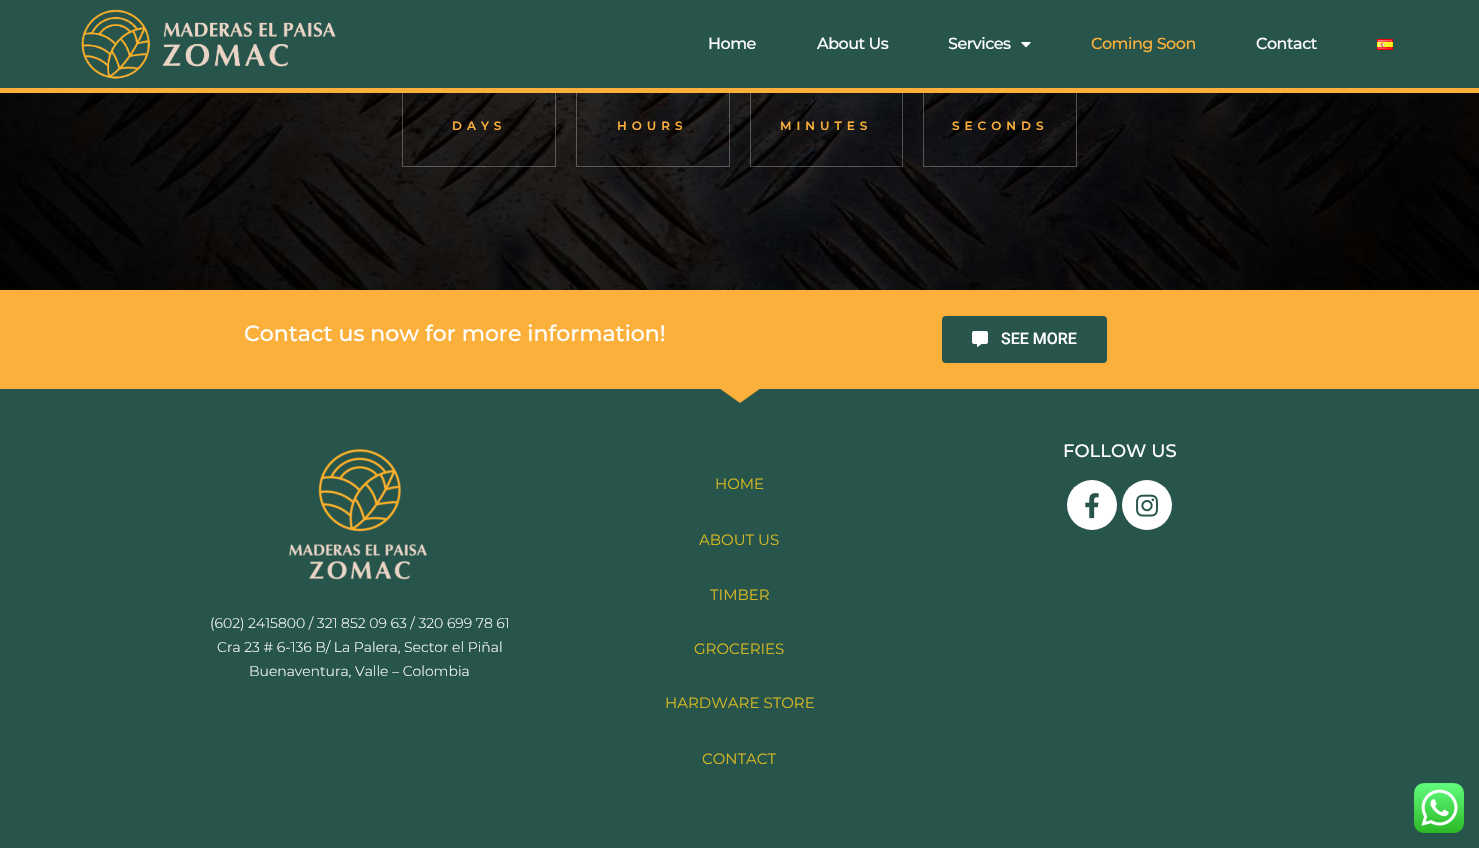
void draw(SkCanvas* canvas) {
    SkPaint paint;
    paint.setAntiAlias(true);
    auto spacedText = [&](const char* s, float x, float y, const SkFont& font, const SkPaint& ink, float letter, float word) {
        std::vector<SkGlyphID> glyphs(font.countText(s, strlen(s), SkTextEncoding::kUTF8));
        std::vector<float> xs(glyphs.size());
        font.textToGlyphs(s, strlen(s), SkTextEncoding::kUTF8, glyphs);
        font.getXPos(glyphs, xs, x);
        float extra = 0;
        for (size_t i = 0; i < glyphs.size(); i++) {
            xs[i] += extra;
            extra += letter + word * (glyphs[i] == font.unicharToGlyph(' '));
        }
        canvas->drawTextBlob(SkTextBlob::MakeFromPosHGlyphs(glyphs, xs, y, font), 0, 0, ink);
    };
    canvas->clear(0xFFFFFFFF);
    canvas->drawImageRect(SkImages::DeferredFromEncodedData(SkData::MakeFromFileName("img4.png")), SkRect::MakeXYWH(0, 93, 1479, 197), SkSamplingOptions());
    paint.setStyle(SkPaint::kStroke_Style);
    paint.setStrokeWidth(1);
    paint.setColor(0x47FFFFFF);
    canvas->drawRect(SkRect::MakeXYWH(402.5f, 21.5f, 153, 145), paint);
    canvas->drawRect(SkRect::MakeXYWH(576.5f, 21.5f, 153, 145), paint);
    canvas->drawRect(SkRect::MakeXYWH(750.5f, 21.5f, 152, 145), paint);
    canvas->drawRect(SkRect::MakeXYWH(923.5f, 21.5f, 153, 145), paint);
    paint.setStyle(SkPaint::kFill_Style);
    paint.setColor(0xFF27554B);
    canvas->drawRect(SkRect::MakeXYWH(0, 0, 1479, 88), paint);
    paint.setColor(0xFFFBB03B);
    canvas->drawRect(SkRect::MakeXYWH(0, 88, 1479, 5), paint);
    canvas->drawImageRect(SkImages::DeferredFromEncodedData(SkData::MakeFromFileName("img1.png")), SkRect::MakeXYWH(81, 9, 255, 70), SkSamplingOptions());
    SkFont font1(fontMgr->matchFamilyStyle("Montserrat", SkFontStyle(500, SkFontStyle::kNormal_Width, SkFontStyle::kUpright_Slant)), 16);
    font1.setSubpixel(true);
    paint.setColor(0xFFFFFFFF);
    spacedText("Home", 708, 49, font1, paint, -0.5f, 0);
    spacedText("About Us", 817, 49, font1, paint, -0.5f, 0);
    spacedText("Services", 948, 49, font1, paint, -0.5f, 0);
    canvas->drawImageRect(SkImages::DeferredFromEncodedData(SkData::MakeFromFileName("img2.png")), SkRect::MakeXYWH(1021, 42, 10, 6), SkSamplingOptions());
    paint.setColor(0xFFFBB03B);
    spacedText("Coming Soon", 1091, 49, font1, paint, -0.5f, 0);
    paint.setColor(0xFFFFFFFF);
    spacedText("Contact", 1256, 49, font1, paint, -0.5f, 0);
    canvas->drawImageRect(SkImages::DeferredFromEncodedData(SkData::MakeFromFileName("img3.png")), SkRect::MakeXYWH(1377, 39, 16, 11), SkSamplingOptions());
    SkFont font2(fontMgr->matchFamilyStyle("Montserrat", SkFontStyle(600, SkFontStyle::kNormal_Width, SkFontStyle::kUpright_Slant)), 12);
    font2.setSubpixel(true);
    paint.setColor(0xFFFBB03B);
    spacedText("DAYS", 452, 130, font2, paint, 5, 0);
    spacedText("HOURS", 617, 130, font2, paint, 5, 0);
    spacedText("MINUTES", 780, 130, font2, paint, 5, 0);
    spacedText("SECONDS", 952, 130, font2, paint, 5, 0);
    canvas->drawRect(SkRect::MakeXYWH(0, 290, 1479, 99), paint);
    SkFont font3(fontMgr->matchFamilyStyle("Montserrat", SkFontStyle(500, SkFontStyle::kNormal_Width, SkFontStyle::kUpright_Slant)), 22);
    font3.setSubpixel(true);
    paint.setColor(0xFFFFFFFF);
    canvas->drawString("Contact us now for more information!", 244, 341, font3, paint);
    paint.setColor(0xFF27554B);
    canvas->drawRoundRect(SkRect::MakeXYWH(942, 316, 165, 47), 4, 4, paint);
    canvas->drawImageRect(SkImages::DeferredFromEncodedData(SkData::MakeFromFileName("img5.png")), SkRect::MakeXYWH(972, 331, 16, 16), SkSamplingOptions());
    SkFont font4(fontMgr->matchFamilyStyle("Roboto", SkFontStyle(500, SkFontStyle::kNormal_Width, SkFontStyle::kUpright_Slant)), 16);
    font4.setSubpixel(true);
    paint.setColor(0xFFFFFFFF);
    canvas->drawString("SEE MORE", 1001, 344, font4, paint);
    paint.setColor(0xFF27554B);
    canvas->drawRect(SkRect::MakeXYWH(0, 389, 1479, 459), paint);
    paint.setColor(0xFFFBB03B);
    canvas->drawPath(SkPathBuilder().moveTo(740, 403).lineTo(719, 388).lineTo(761, 388).close().detach(), paint);
    SkFont font5(fontMgr->matchFamilyStyle("Montserrat", SkFontStyle(500, SkFontStyle::kNormal_Width, SkFontStyle::kUpright_Slant)), 18);
    font5.setSubpixel(true);
    paint.setColor(0xFFFFFFFF);
    canvas->drawString("FOLLOW US", 1063, 457, font5, paint);
    canvas->drawCircle(1092, 505, 25, paint);
    canvas->drawImageRect(SkImages::DeferredFromEncodedData(SkData::MakeFromFileName("img6.png")), SkRect::MakeXYWH(1085, 493, 14, 26), SkSamplingOptions());
    canvas->drawCircle(1147, 505, 25, paint);
    canvas->drawImageRect(SkImages::DeferredFromEncodedData(SkData::MakeFromFileName("img7.png")), SkRect::MakeXYWH(1136, 494, 22, 23), SkSamplingOptions());
    canvas->drawImageRect(SkImages::DeferredFromEncodedData(SkData::MakeFromFileName("img8.png")), SkRect::MakeXYWH(289, 449, 138, 131), SkSamplingOptions());
    SkFont font6(fontMgr->matchFamilyStyle("Montserrat", SkFontStyle(300, SkFontStyle::kNormal_Width, SkFontStyle::kUpright_Slant)), 14);
    font6.setSubpixel(true);
    canvas->drawString("(602) 2415800 / 321 852 09 63 / 320 699 78 61", 210, 628, font6, paint);
    canvas->drawString("Cra 23 # 6-136 B/ La Palera, Sector el Piñal", 217, 652, font6, paint);
    canvas->drawString("Buenaventura, Valle – Colombia", 249, 676, font6, paint);
    SkFont font7(fontMgr->matchFamilyStyle("Montserrat", SkFontStyle::Normal()), 15);
    font7.setSubpixel(true);
    paint.setColor(0xFFD3B624);
    canvas->drawString("HOME", 715, 489, font7, paint);
    canvas->drawString("ABOUT US", 699, 545, font7, paint);
    canvas->drawString("TIMBER", 710, 600, font7, paint);
    canvas->drawString("GROCERIES", 694, 654, font7, paint);
    canvas->drawString("HARDWARE STORE", 665, 708, font7, paint);
    canvas->drawString("CONTACT", 702, 764, font7, paint);
    canvas->drawImageRect(SkImages::DeferredFromEncodedData(SkData::MakeFromFileName("img9.png")), SkRect::MakeXYWH(1414, 783, 50, 50), SkSamplingOptions());
}
